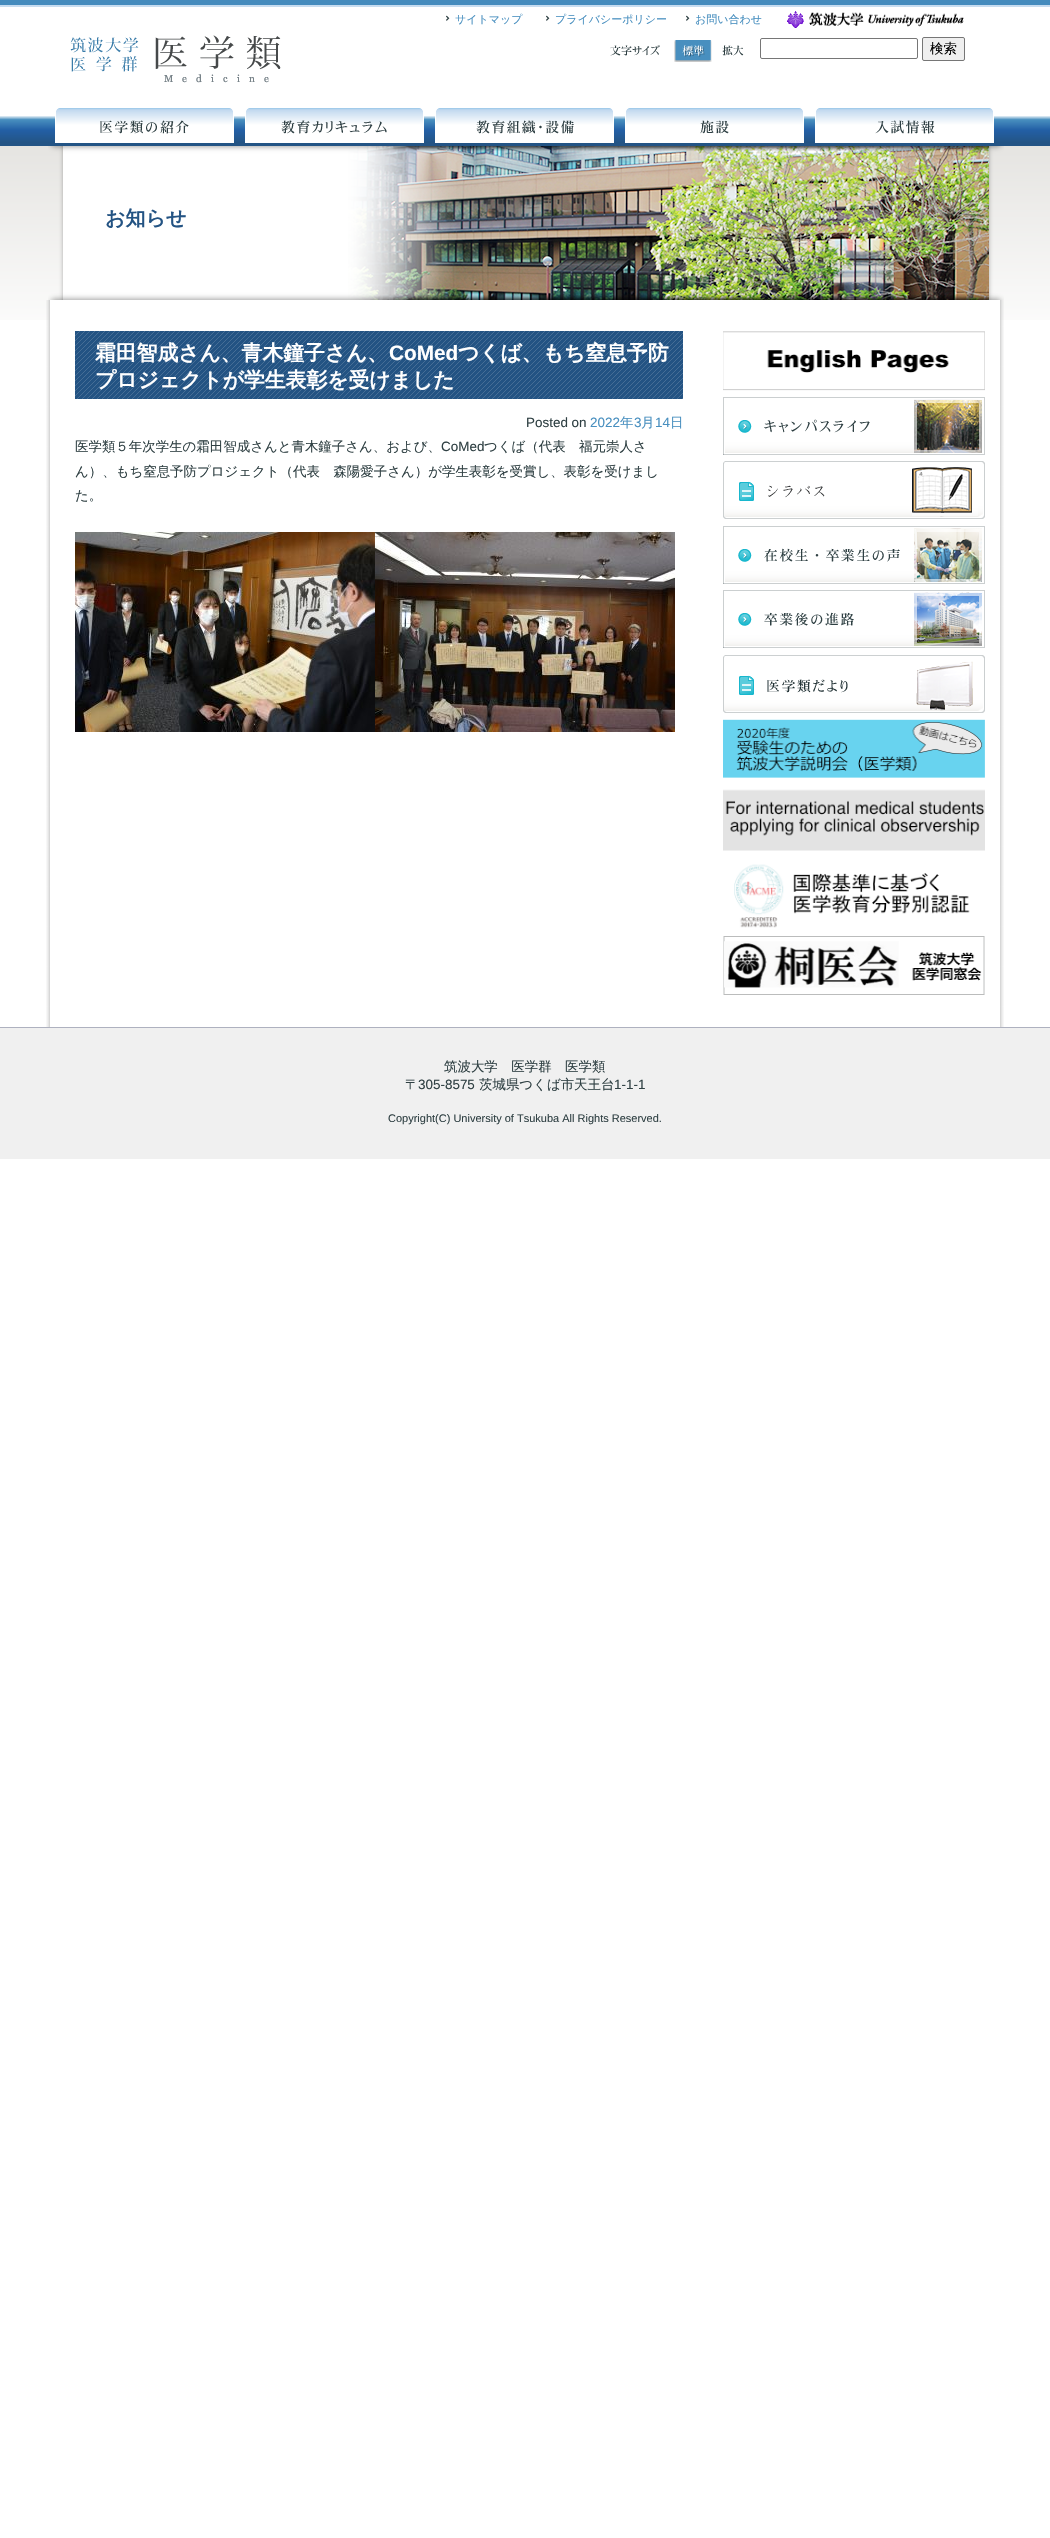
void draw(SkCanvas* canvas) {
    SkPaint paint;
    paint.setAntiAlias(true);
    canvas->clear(0xFFFFFFFF);
    canvas->drawImageRect(SkImages::DeferredFromEncodedData(SkData::MakeFromFileName("img1.png")), SkRect::MakeXYWH(0, 0, 1050, 320), SkSamplingOptions());
    canvas->drawImageRect(SkImages::DeferredFromEncodedData(SkData::MakeFromFileName("img2.png")), SkRect::MakeXYWH(70, 35, 211, 48), SkSamplingOptions());
    canvas->drawImageRect(SkImages::DeferredFromEncodedData(SkData::MakeFromFileName("img3.png")), SkRect::MakeXYWH(446, 15, 4, 6), SkSamplingOptions());
    SkFont font1(fontMgr->matchFamilyStyle("WenQuanYi Zen Hei", SkFontStyle(500, SkFontStyle::kNormal_Width, SkFontStyle::kUpright_Slant)), 11);
    font1.setSubpixel(true);
    paint.setColor(0xFF488FBF);
    canvas->drawString("サイトマップ", 455, 23, font1, paint);
    canvas->drawImageRect(SkImages::DeferredFromEncodedData(SkData::MakeFromFileName("img3.png")), SkRect::MakeXYWH(546, 15, 4, 6), SkSamplingOptions());
    canvas->drawString("プライバシーポリシー", 555, 23, font1, paint);
    canvas->drawImageRect(SkImages::DeferredFromEncodedData(SkData::MakeFromFileName("img3.png")), SkRect::MakeXYWH(686, 15, 4, 6), SkSamplingOptions());
    canvas->drawString("お問い合わせ", 695, 23, font1, paint);
    canvas->drawImageRect(SkImages::DeferredFromEncodedData(SkData::MakeFromFileName("img4.png")), SkRect::MakeXYWH(787, 11, 177, 17), SkSamplingOptions());
    canvas->drawImageRect(SkImages::DeferredFromEncodedData(SkData::MakeFromFileName("img5.png")), SkRect::MakeXYWH(610, 45, 50, 11), SkSamplingOptions());
    canvas->drawImageRect(SkImages::DeferredFromEncodedData(SkData::MakeFromFileName("img6.png")), SkRect::MakeXYWH(674, 40, 38, 22), SkSamplingOptions());
    canvas->drawImageRect(SkImages::DeferredFromEncodedData(SkData::MakeFromFileName("img7.png")), SkRect::MakeXYWH(722, 45, 22, 11), SkSamplingOptions());
    paint.setStyle(SkPaint::kStroke_Style);
    paint.setStrokeWidth(1);
    paint.setColor(0xFF767676);
    canvas->drawRoundRect(SkRect::MakeXYWH(760.5f, 38.5f, 157, 20), 1.5f, 1.5f, paint);
    paint.setStyle(SkPaint::kFill_Style);
    paint.setColor(0xFFEFEFEF);
    canvas->drawRoundRect(SkRect::MakeXYWH(922.5f, 37.5f, 42, 23), 1.5f, 1.5f, paint);
    paint.setStyle(SkPaint::kStroke_Style);
    paint.setColor(0xFF767676);
    canvas->drawRoundRect(SkRect::MakeXYWH(922.5f, 37.5f, 42, 23), 1.5f, 1.5f, paint);
    SkFont font2(fontMgr->matchFamilyStyle("WenQuanYi Zen Hei", SkFontStyle(500, SkFontStyle::kNormal_Width, SkFontStyle::kUpright_Slant)), 13.45f);
    font2.setSubpixel(true);
    paint.setStyle(SkPaint::kFill_Style);
    paint.setColor(0xFF000000);
    canvas->drawString("検索", 930, 53, font2, paint);
    paint.setColor(0xFFFFFFFF);
    canvas->drawRect(SkRect::MakeXYWH(55, 116, 179, 27), paint);
    canvas->drawImageRect(SkImages::DeferredFromEncodedData(SkData::MakeFromFileName("img8.png")), SkRect::MakeXYWH(56, 108, 177, 26), SkSamplingOptions());
    canvas->drawImageRect(SkImages::DeferredFromEncodedData(SkData::MakeFromFileName("img9.png")), SkRect::MakeXYWH(245, 108, 179, 35), SkSamplingOptions());
    canvas->drawImageRect(SkImages::DeferredFromEncodedData(SkData::MakeFromFileName("img10.png")), SkRect::MakeXYWH(435, 108, 179, 35), SkSamplingOptions());
    canvas->drawImageRect(SkImages::DeferredFromEncodedData(SkData::MakeFromFileName("img11.png")), SkRect::MakeXYWH(625, 108, 179, 35), SkSamplingOptions());
    canvas->drawImageRect(SkImages::DeferredFromEncodedData(SkData::MakeFromFileName("img12.png")), SkRect::MakeXYWH(815, 108, 179, 35), SkSamplingOptions());
    canvas->drawImageRect(SkImages::DeferredFromEncodedData(SkData::MakeFromFileName("img13.png")), SkRect::MakeXYWH(48, 146, 956, 154), SkSamplingOptions());
    SkFont font3(fontMgr->matchFamilyStyle("WenQuanYi Zen Hei", SkFontStyle::Bold()), 20);
    font3.setSubpixel(true);
    paint.setColor(0xFF235383);
    canvas->drawString("お知らせ", 105, 225, font3, paint);
    canvas->drawImageRect(SkImages::DeferredFromEncodedData(SkData::MakeFromFileName("img14.png")), SkRect::MakeXYWH(46, 300, 958, 26), SkSamplingOptions());
    canvas->drawImageRect(SkImages::DeferredFromEncodedData(SkData::MakeFromFileName("img15.png")), SkRect::MakeXYWH(46, 326, 958, 701), SkSamplingOptions());
    canvas->drawImageRect(SkImages::DeferredFromEncodedData(SkData::MakeFromFileName("img16.png")), SkRect::MakeXYWH(75, 331, 608, 68), SkSamplingOptions());
    SkFont font4(fontMgr->matchFamilyStyle("WenQuanYi Zen Hei", SkFontStyle::Bold()), 20.8f);
    font4.setSubpixel(true);
    paint.setColor(0xFFFFFFFF);
    canvas->drawString("霜田智成さん、青木鐘子さん、", 95, 360, font4, paint);
    SkFont font5(fontMgr->matchFamilyStyle("Liberation Sans", SkFontStyle::Bold()), 20.8f);
    font5.setSubpixel(true);
    canvas->drawString("CoMed", 389, 360, font5, paint);
    canvas->drawString("つくば、もち窒息予防", 458, 360, font4, paint);
    canvas->drawString("プロジェクトが学生表彰を受けました", 95, 387, font4, paint);
    SkFont font6(fontMgr->matchFamilyStyle("Liberation Sans", SkFontStyle::Normal()), 13.45f);
    font6.setSubpixel(true);
    paint.setColor(0xFF2F4043);
    canvas->drawString("Posted on", 526, 427, font6, paint);
    paint.setColor(0xFF488FBF);
    canvas->drawString("2022", 590, 427, font6, paint);
    canvas->drawString("年", 620, 427, font2, paint);
    canvas->drawString("3", 634, 427, font6, paint);
    canvas->drawString("月", 641, 427, font2, paint);
    canvas->drawString("14", 655, 427, font6, paint);
    canvas->drawString("日", 670, 427, font2, paint);
    paint.setColor(0xFF2F4043);
    canvas->drawString("医学類５年次学生の霜田智成さんと青木鐘子さん、および、", 75, 451, font2, paint);
    canvas->drawString("CoMed", 441, 451, font6, paint);
    canvas->drawString("つくば（代表　福元崇人さ", 484, 451, font2, paint);
    canvas->drawString("ん）、もち窒息予防プロジェクト（代表　森陽愛子さん）が学生表彰を受賞し、表彰を受けまし", 75, 476, font2, paint);
    canvas->drawString("た。", 75, 500, font2, paint);
    canvas->drawImageRect(SkImages::DeferredFromEncodedData(SkData::MakeFromFileName("img17.png")), SkRect::MakeXYWH(75, 532, 300, 200), SkSamplingOptions());
    canvas->drawImageRect(SkImages::DeferredFromEncodedData(SkData::MakeFromFileName("img18.png")), SkRect::MakeXYWH(375, 532, 300, 200), SkSamplingOptions());
    canvas->drawImageRect(SkImages::DeferredFromEncodedData(SkData::MakeFromFileName("img19.png")), SkRect::MakeXYWH(723, 331, 262, 60), SkSamplingOptions());
    canvas->drawImageRect(SkImages::DeferredFromEncodedData(SkData::MakeFromFileName("img20.png")), SkRect::MakeXYWH(723, 397, 262, 58), SkSamplingOptions());
    canvas->drawImageRect(SkImages::DeferredFromEncodedData(SkData::MakeFromFileName("img21.png")), SkRect::MakeXYWH(723, 461, 262, 58), SkSamplingOptions());
    canvas->drawImageRect(SkImages::DeferredFromEncodedData(SkData::MakeFromFileName("img22.png")), SkRect::MakeXYWH(723, 526, 262, 58), SkSamplingOptions());
    canvas->drawImageRect(SkImages::DeferredFromEncodedData(SkData::MakeFromFileName("img23.png")), SkRect::MakeXYWH(723, 590, 262, 58), SkSamplingOptions());
    canvas->drawImageRect(SkImages::DeferredFromEncodedData(SkData::MakeFromFileName("img24.png")), SkRect::MakeXYWH(723, 655, 262, 58), SkSamplingOptions());
    canvas->drawImageRect(SkImages::DeferredFromEncodedData(SkData::MakeFromFileName("img25.png")), SkRect::MakeXYWH(723, 719, 262, 59), SkSamplingOptions());
    canvas->drawImageRect(SkImages::DeferredFromEncodedData(SkData::MakeFromFileName("img26.png")), SkRect::MakeXYWH(723, 789, 262, 62), SkSamplingOptions());
    canvas->drawImageRect(SkImages::DeferredFromEncodedData(SkData::MakeFromFileName("img27.png")), SkRect::MakeXYWH(734, 864, 236, 64), SkSamplingOptions());
    canvas->drawImageRect(SkImages::DeferredFromEncodedData(SkData::MakeFromFileName("img28.png")), SkRect::MakeXYWH(723, 936, 262, 59), SkSamplingOptions());
    paint.setColor(0xFFF0F0F0);
    canvas->drawRect(SkRect::MakeXYWH(0, 1028, 1050, 131), paint);
    paint.setColor(0xFFAEB1BF);
    canvas->drawRect(SkRect::MakeXYWH(0, 1027, 1050, 1), paint);
    paint.setColor(0xFF2F4043);
    canvas->drawString("筑波大学　医学群　医学類", 444, 1071, font2, paint);
    canvas->drawString("〒", 405, 1089, font2, paint);
    canvas->drawString("305-8575", 418, 1089, font6, paint);
    canvas->drawString("茨城県つくば市天王台", 479, 1089, font2, paint);
    canvas->drawString("1-1-1", 614, 1089, font6, paint);
    SkFont font7(fontMgr->matchFamilyStyle("Liberation Sans", SkFontStyle::Normal()), 11);
    font7.setSubpixel(true);
    canvas->drawString("Copyright(C) University of Tsukuba All Rights Reserved.", 388, 1122, font7, paint);
}
